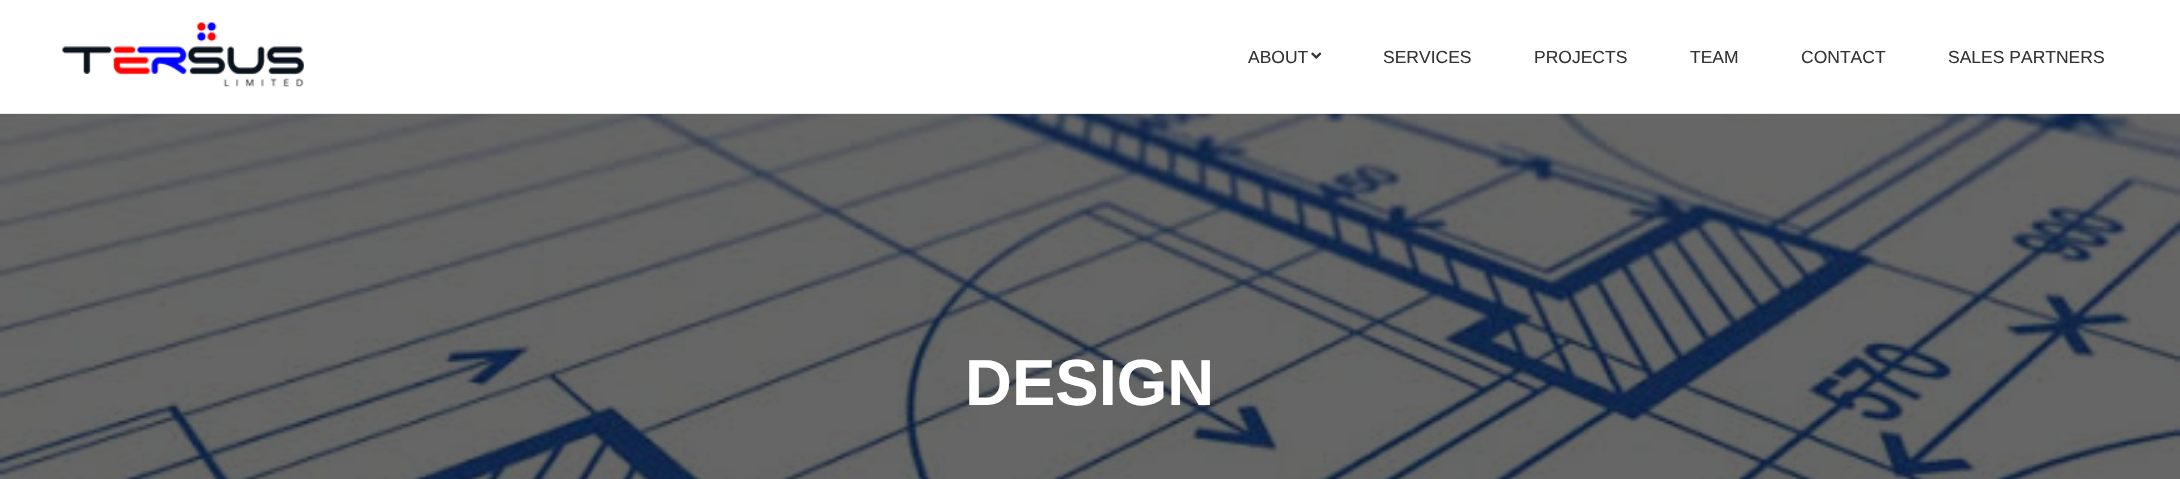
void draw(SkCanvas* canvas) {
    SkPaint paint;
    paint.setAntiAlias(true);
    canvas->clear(0xFFFFFFFF);
    paint.setColor(0xFFE9E9E9);
    canvas->drawRect(SkRect::MakeXYWH(0, 113, 2180, 1), paint);
    canvas->drawImageRect(SkImages::DeferredFromEncodedData(SkData::MakeFromFileName("img1.png")), SkRect::MakeXYWH(62, 22, 242, 65), SkSamplingOptions());
    SkFont font1(fontMgr->matchFamilyStyle("Liberation Sans", SkFontStyle::Normal()), 17.5f);
    font1.setSubpixel(true);
    paint.setColor(0xFF333333);
    canvas->drawString("ABOUT", 1248, 63, font1, paint);
    canvas->drawImageRect(SkImages::DeferredFromEncodedData(SkData::MakeFromFileName("img2.png")), SkRect::MakeXYWH(1311, 52, 11, 7), SkSamplingOptions());
    canvas->drawString("SERVICES", 1383, 63, font1, paint);
    canvas->drawString("PROJECTS", 1534, 63, font1, paint);
    canvas->drawString("TEAM", 1690, 63, font1, paint);
    canvas->drawString("CONTACT", 1801, 63, font1, paint);
    canvas->drawString("SALES PARTNERS", 1948, 63, font1, paint);
    canvas->drawImageRect(SkImages::DeferredFromEncodedData(SkData::MakeFromFileName("img3.png")), SkRect::MakeXYWH(0, 114, 2180, 365), SkSamplingOptions());
    SkFont font2(fontMgr->matchFamilyStyle("Liberation Sans", SkFontStyle::Bold()), 65);
    font2.setSubpixel(true);
    paint.setColor(0xFFFFFFFF);
    canvas->drawString("DESIGN", 965, 405, font2, paint);
}
